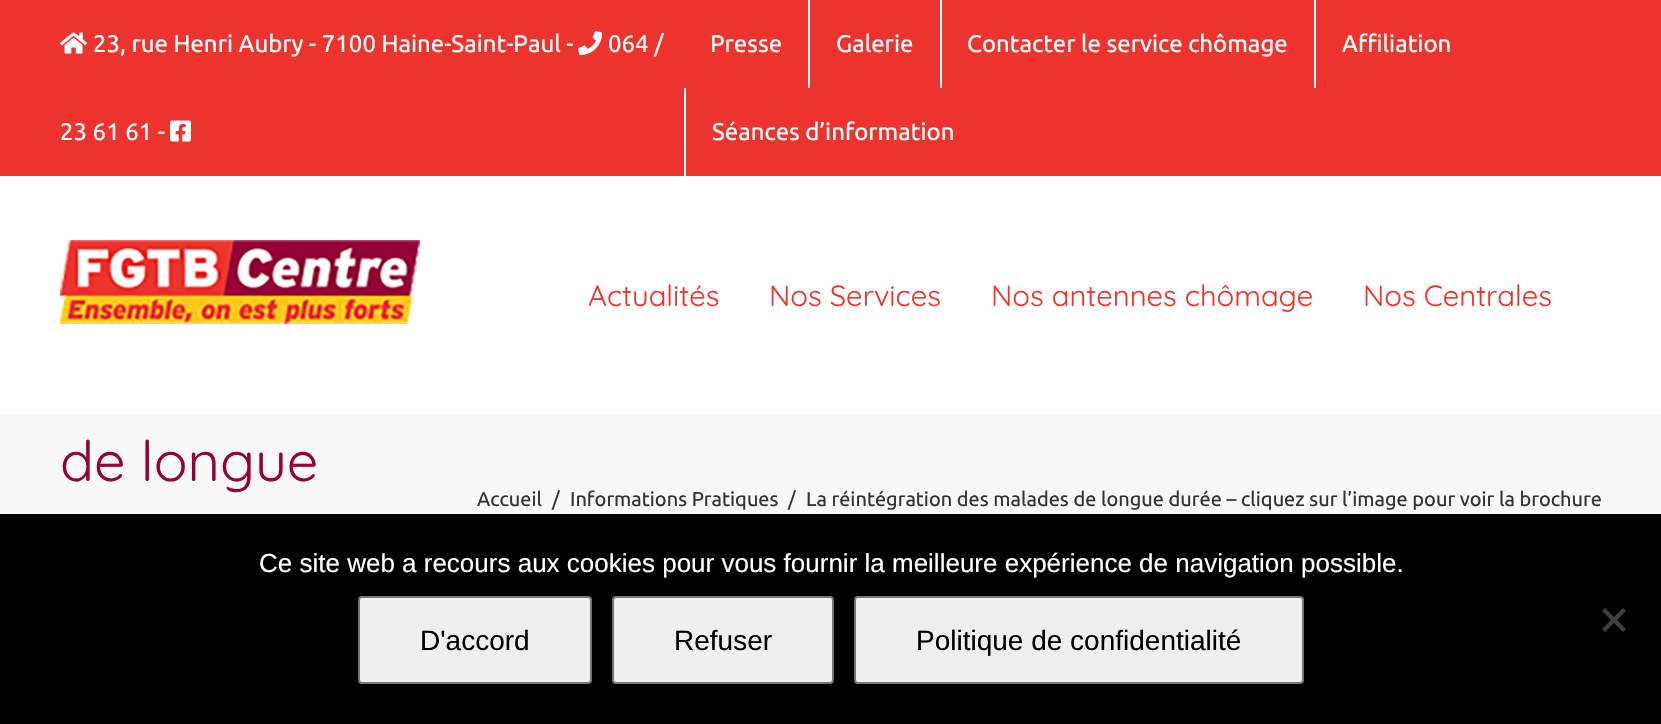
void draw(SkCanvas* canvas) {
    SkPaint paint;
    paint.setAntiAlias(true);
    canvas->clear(0xFFF8F8F8);
    paint.setColor(0xFFEC332E);
    canvas->drawRect(SkRect::MakeXYWH(0, 0, 1661, 176), paint);
    paint.setColor(0xFFFFFFFF);
    canvas->drawRect(SkRect::MakeXYWH(0, 176, 1661, 236), paint);
    canvas->drawImageRect(SkImages::DeferredFromEncodedData(SkData::MakeFromFileName("img1.png")), SkRect::MakeXYWH(578, 31, 25, 24), SkSamplingOptions());
    SkFont font1(fontMgr->matchFamilyStyle("Ubuntu", SkFontStyle::Normal()), 24);
    font1.setSubpixel(true);
    canvas->drawString("064 /", 608, 52, font1, paint);
    canvas->drawString("23 61 61 -", 60, 140, font1, paint);
    canvas->drawImageRect(SkImages::DeferredFromEncodedData(SkData::MakeFromFileName("img2.png")), SkRect::MakeXYWH(60, 32, 27, 22), SkSamplingOptions());
    canvas->drawString("23, rue Henri Aubry - 7100 Haine-Saint-Paul -", 93, 52, font1, paint);
    canvas->drawImageRect(SkImages::DeferredFromEncodedData(SkData::MakeFromFileName("img3.png")), SkRect::MakeXYWH(170, 120, 21, 22), SkSamplingOptions());
    canvas->drawString("Presse", 710, 52, font1, paint);
    canvas->drawRect(SkRect::MakeXYWH(808, 0, 2, 88), paint);
    canvas->drawString("Galerie", 836, 52, font1, paint);
    canvas->drawRect(SkRect::MakeXYWH(940, 0, 2, 88), paint);
    canvas->drawString("Contacter le service chômage", 967, 52, font1, paint);
    canvas->drawRect(SkRect::MakeXYWH(1314, 0, 2, 88), paint);
    canvas->drawString("Affiliation", 1342, 52, font1, paint);
    canvas->drawRect(SkRect::MakeXYWH(684, 88, 2, 88), paint);
    canvas->drawString("Séances d’information", 712, 140, font1, paint);
    canvas->drawImageRect(SkImages::DeferredFromEncodedData(SkData::MakeFromFileName("img4.png")), SkRect::MakeXYWH(60, 240, 360, 84), SkSamplingOptions());
    SkFont font2(fontMgr->matchFamilyStyle("Quicksand", SkFontStyle(300, SkFontStyle::kNormal_Width, SkFontStyle::kUpright_Slant)), 29.25f);
    font2.setSubpixel(true);
    paint.setColor(0xFFEC332E);
    canvas->drawString("Actualités", 588, 306, font2, paint);
    canvas->drawString("Nos Services", 769, 306, font2, paint);
    canvas->drawString("Nos antennes chômage", 991, 306, font2, paint);
    canvas->drawString("Nos Centrales", 1363, 306, font2, paint);
    paint.setColor(0xFFFFFFFF);
    canvas->drawRect(SkRect::MakeXYWH(0, 412, 1661, 2), paint);
    SkFont font3(fontMgr->matchFamilyStyle("Quicksand", SkFontStyle(300, SkFontStyle::kNormal_Width, SkFontStyle::kUpright_Slant)), 56);
    font3.setSubpixel(true);
    paint.setColor(0xFF950038);
    canvas->drawString("de longue", 60, 481, font3, paint);
    SkFont font4(fontMgr->matchFamilyStyle("Ubuntu", SkFontStyle::Normal()), 20);
    font4.setSubpixel(true);
    paint.setColor(0xFF333333);
    canvas->drawString("Accueil", 477, 506, font4, paint);
    canvas->drawString("/", 552, 506, font4, paint);
    canvas->drawString("Informations Pratiques", 570, 506, font4, paint);
    canvas->drawString("/", 788, 506, font4, paint);
    canvas->drawString("La réintégration des malades de longue durée – cliquez sur l’image pour voir la brochure", 806, 506, font4, paint);
    paint.setColor(0xFF000000);
    canvas->drawRect(SkRect::MakeXYWH(0, 514, 1661, 210), paint);
    SkFont font5(fontMgr->matchFamilyStyle("Liberation Sans", SkFontStyle::Normal()), 26);
    font5.setSubpixel(true);
    paint.setColor(0xFFFFFFFF);
    canvas->drawString("Ce site web a recours aux cookies pour vous fournir la meilleure expérience de navigation possible.", 259, 572, font5, paint);
    paint.setColor(0xFF404040);
    canvas->drawPath(SkPathBuilder().moveTo(1623, 608).lineTo(1626, 611).lineTo(1605, 632).lineTo(1602, 629).close().detach(), paint);
    canvas->drawPath(SkPathBuilder().moveTo(1602, 611).lineTo(1605, 608).lineTo(1626, 629).lineTo(1623, 632).close().detach(), paint);
    paint.setColor(0xFFEFEFEF);
    canvas->drawRoundRect(SkRect::MakeXYWH(359, 597, 232, 86), 3, 3, paint);
    paint.setStyle(SkPaint::kStroke_Style);
    paint.setStrokeWidth(2);
    paint.setColor(0xFF767676);
    canvas->drawRoundRect(SkRect::MakeXYWH(359, 597, 232, 86), 3, 3, paint);
    SkFont font6(fontMgr->matchFamilyStyle("Liberation Sans", SkFontStyle::Normal()), 28);
    font6.setSubpixel(true);
    paint.setStyle(SkPaint::kFill_Style);
    paint.setColor(0xFF000000);
    canvas->drawString("D'accord", 420, 650, font6, paint);
    paint.setColor(0xFFEFEFEF);
    canvas->drawRoundRect(SkRect::MakeXYWH(613, 597, 220, 86), 3, 3, paint);
    paint.setStyle(SkPaint::kStroke_Style);
    paint.setColor(0xFF767676);
    canvas->drawRoundRect(SkRect::MakeXYWH(613, 597, 220, 86), 3, 3, paint);
    paint.setStyle(SkPaint::kFill_Style);
    paint.setColor(0xFF000000);
    canvas->drawString("Refuser", 674, 650, font6, paint);
    paint.setColor(0xFFEFEFEF);
    canvas->drawRoundRect(SkRect::MakeXYWH(855, 597, 448, 86), 3, 3, paint);
    paint.setStyle(SkPaint::kStroke_Style);
    paint.setColor(0xFF767676);
    canvas->drawRoundRect(SkRect::MakeXYWH(855, 597, 448, 86), 3, 3, paint);
    paint.setStyle(SkPaint::kFill_Style);
    paint.setColor(0xFF000000);
    canvas->drawString("Politique de confidentialité", 916, 650, font6, paint);
}
